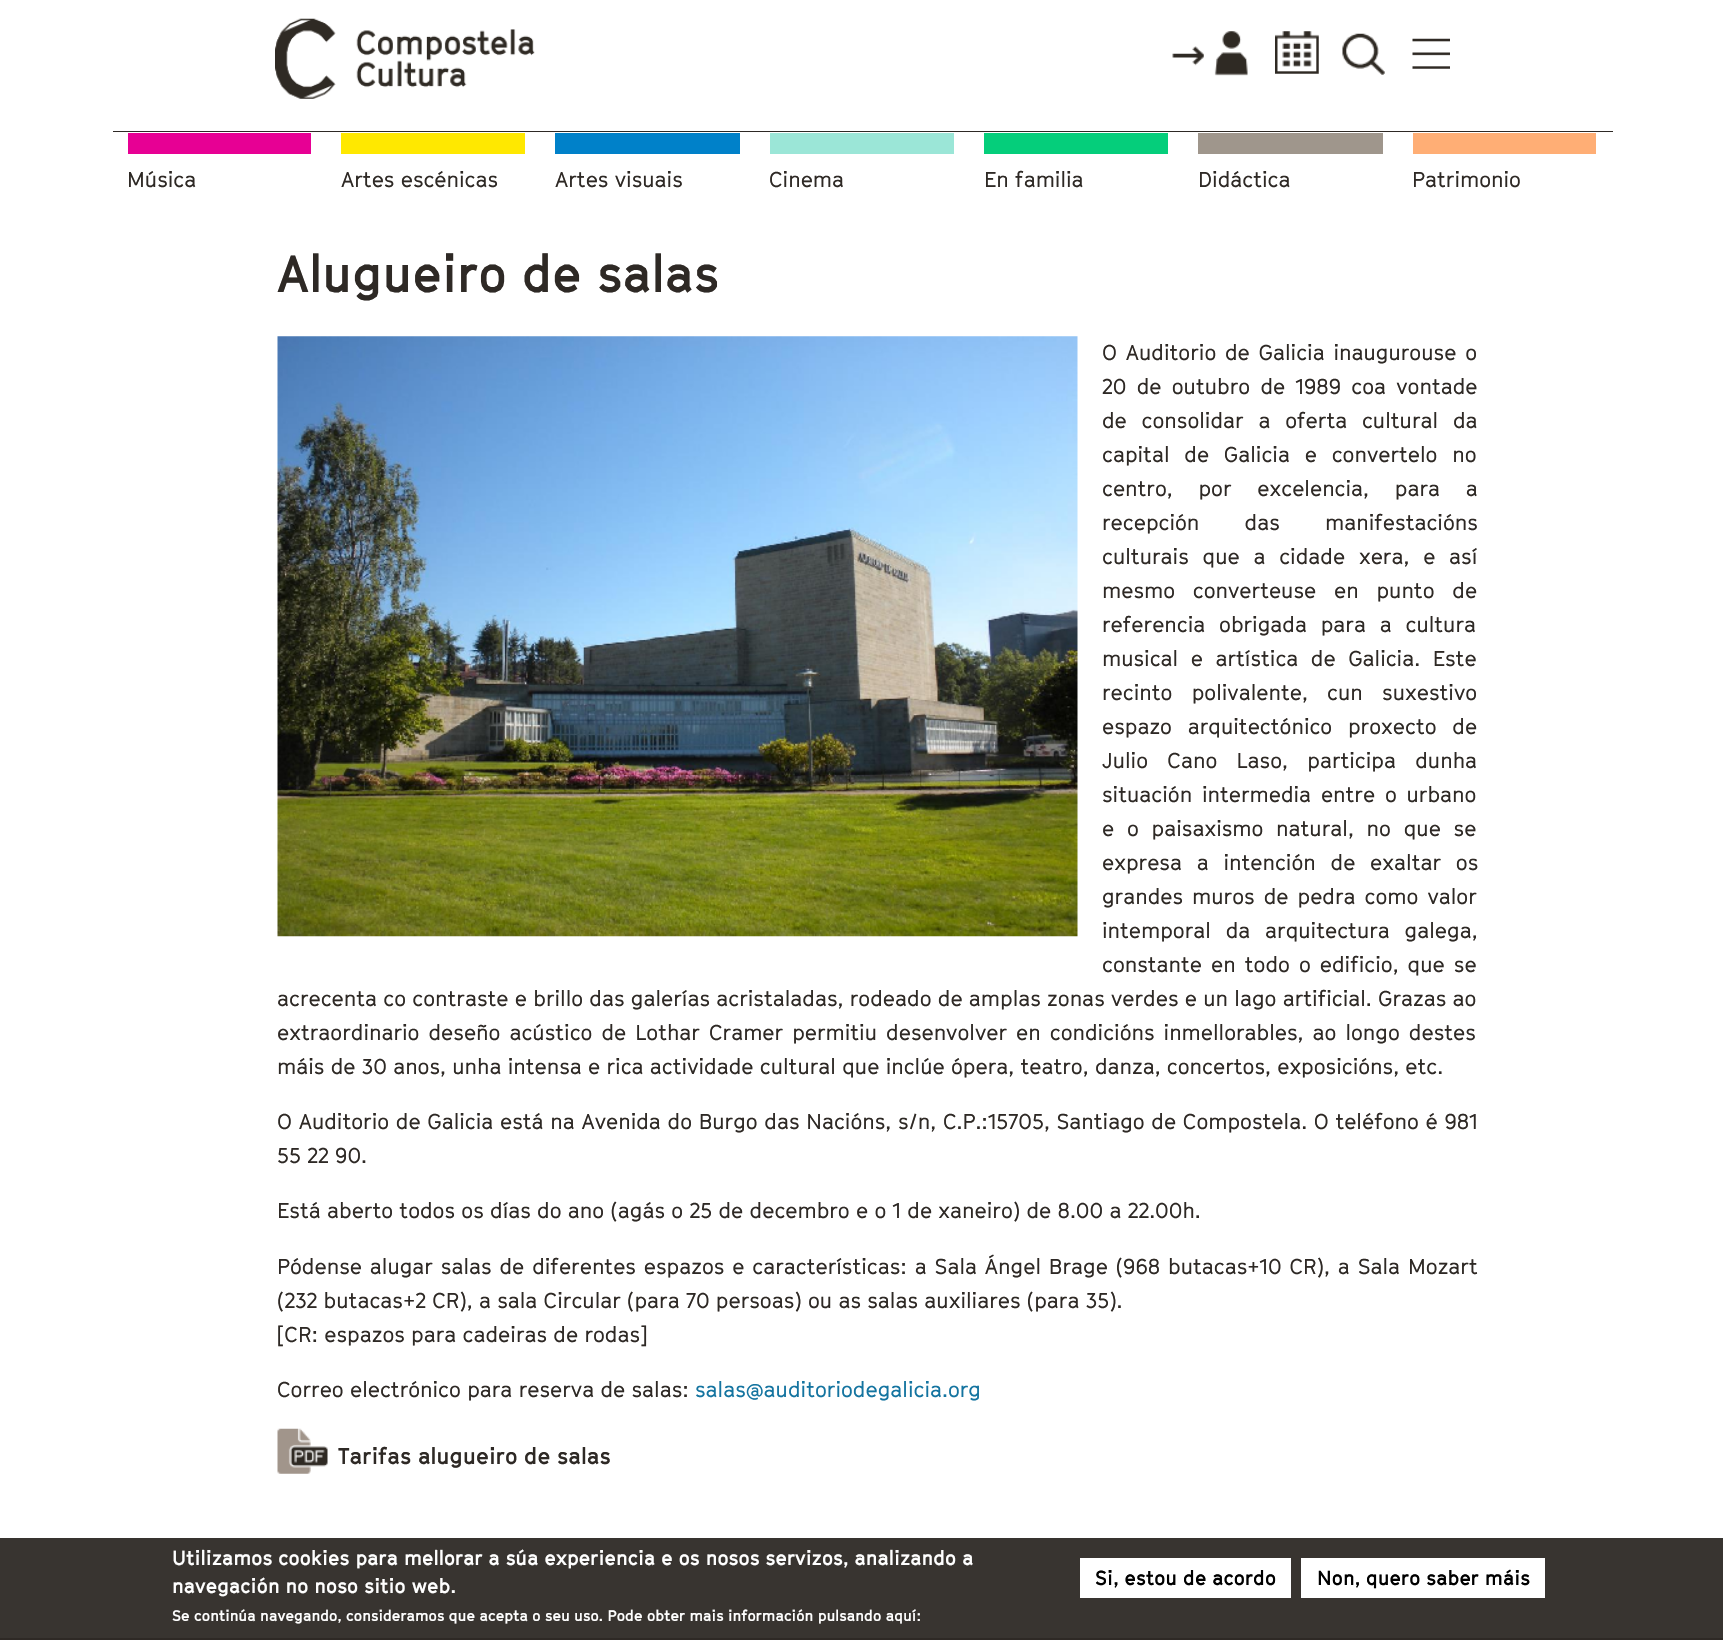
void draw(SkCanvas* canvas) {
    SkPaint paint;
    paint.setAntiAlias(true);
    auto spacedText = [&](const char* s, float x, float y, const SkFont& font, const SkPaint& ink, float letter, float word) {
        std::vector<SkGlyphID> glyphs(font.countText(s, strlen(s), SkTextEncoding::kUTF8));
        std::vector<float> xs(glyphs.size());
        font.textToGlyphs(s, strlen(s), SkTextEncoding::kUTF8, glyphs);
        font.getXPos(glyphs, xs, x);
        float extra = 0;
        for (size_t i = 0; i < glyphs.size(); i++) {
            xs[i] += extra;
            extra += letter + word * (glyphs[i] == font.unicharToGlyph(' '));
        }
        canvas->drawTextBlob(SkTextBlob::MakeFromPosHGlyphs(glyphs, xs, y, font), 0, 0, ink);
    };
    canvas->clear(0xFFFFFFFF);
    paint.setColor(0xFF383430);
    canvas->drawRect(SkRect::MakeXYWH(0, 1538, 1723, 100), paint);
    canvas->drawImageRect(SkImages::DeferredFromEncodedData(SkData::MakeFromFileName("img1.png")), SkRect::MakeXYWH(275, 18, 260, 81), SkSamplingOptions());
    canvas->drawImageRect(SkImages::DeferredFromEncodedData(SkData::MakeFromFileName("img2.png")), SkRect::MakeXYWH(1172, 31, 76, 45), SkSamplingOptions());
    canvas->drawImageRect(SkImages::DeferredFromEncodedData(SkData::MakeFromFileName("img3.png")), SkRect::MakeXYWH(1275, 31, 44, 43), SkSamplingOptions());
    canvas->drawImageRect(SkImages::DeferredFromEncodedData(SkData::MakeFromFileName("img4.png")), SkRect::MakeXYWH(1342, 33, 43, 42), SkSamplingOptions());
    canvas->drawImageRect(SkImages::DeferredFromEncodedData(SkData::MakeFromFileName("img5.png")), SkRect::MakeXYWH(1412, 38, 38, 31), SkSamplingOptions());
    paint.setColor(0xFF2E2925);
    canvas->drawRect(SkRect::MakeXYWH(113, 131, 1500, 1), paint);
    paint.setColor(0xFFE70094);
    canvas->drawRect(SkRect::MakeXYWH(128, 133, 183, 21), paint);
    SkFont font1(fontMgr->matchFamilyStyle("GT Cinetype", SkFontStyle::Normal()), 21.25f);
    font1.setSubpixel(true);
    paint.setColor(0xFF2E2925);
    canvas->drawString("Música", 127, 187, font1, paint);
    paint.setColor(0xFFFFE800);
    canvas->drawRect(SkRect::MakeXYWH(341, 133, 184, 21), paint);
    paint.setColor(0xFF2E2925);
    canvas->drawString("Artes escénicas", 341, 187, font1, paint);
    paint.setColor(0xFF0081C9);
    canvas->drawRect(SkRect::MakeXYWH(555, 133, 185, 21), paint);
    paint.setColor(0xFF2E2925);
    canvas->drawString("Artes visuais", 555, 187, font1, paint);
    paint.setColor(0xFF9BE6D7);
    canvas->drawRect(SkRect::MakeXYWH(770, 133, 184, 21), paint);
    paint.setColor(0xFF2E2925);
    canvas->drawString("Cinema", 769, 187, font1, paint);
    paint.setColor(0xFF05CE7B);
    canvas->drawRect(SkRect::MakeXYWH(984, 133, 184, 21), paint);
    paint.setColor(0xFF2E2925);
    canvas->drawString("En familia", 984, 187, font1, paint);
    paint.setColor(0xFF9F968C);
    canvas->drawRect(SkRect::MakeXYWH(1198, 133, 185, 21), paint);
    paint.setColor(0xFF2E2925);
    canvas->drawString("Didáctica", 1198, 187, font1, paint);
    paint.setColor(0xFFFFAE75);
    canvas->drawRect(SkRect::MakeXYWH(1413, 133, 183, 21), paint);
    paint.setColor(0xFF2E2925);
    canvas->drawString("Patrimonio", 1412, 187, font1, paint);
    SkFont font2(fontMgr->matchFamilyStyle("GT Cinetype", SkFontStyle::Bold()), 51.25f);
    font2.setSubpixel(true);
    canvas->drawString("Alugueiro de salas", 277, 292, font2, paint);
    canvas->drawImageRect(SkImages::DeferredFromEncodedData(SkData::MakeFromFileName("img6.png")), SkRect::MakeXYWH(277, 336, 801, 601), SkSamplingOptions());
    spacedText("O Auditorio de Galicia inaugurouse o", 1102, 360, font1, paint, 0, 2.5f);
    spacedText("20 de outubro de 1989 coa vontade", 1102, 394, font1, paint, 0, 4);
    spacedText("de consolidar a oferta cultural da", 1102, 428, font1, paint, 0, 8.5f);
    spacedText("capital de Galicia e convertelo no", 1102, 462, font1, paint, 0, 8.5f);
    spacedText("centro, por excelencia, para a", 1102, 496, font1, paint, 0, 19.5f);
    spacedText("recepción das manifestacións", 1102, 530, font1, paint, 0, 39);
    spacedText("culturais que a cidade xera, e así", 1102, 564, font1, paint, 0, 7.5f);
    spacedText("mesmo converteuse en punto de", 1102, 598, font1, paint, 0, 11.5f);
    spacedText("referencia obrigada para a cultura", 1102, 632, font1, paint, 0, 7.5f);
    spacedText("musical e artística de Galicia. Este", 1102, 666, font1, paint, 0, 6.25f);
    spacedText("recinto polivalente, cun suxestivo", 1102, 700, font1, paint, 0, 13);
    spacedText("espazo arquitectónico proxecto de", 1102, 734, font1, paint, 0, 9.5f);
    spacedText("Julio Cano Laso, participa dunha", 1102, 768, font1, paint, 0, 13);
    spacedText("situación intermedia entre o urbano", 1102, 802, font1, paint, 0, 3.5f);
    spacedText("e o paisaxismo natural, no que se", 1102, 836, font1, paint, 0, 6.5f);
    spacedText("expresa a intención de exaltar os", 1102, 870, font1, paint, 0, 8.5f);
    spacedText("grandes muros de pedra como valor", 1102, 904, font1, paint, 0, 2.75f);
    spacedText("intemporal da arquitectura galega,", 1102, 938, font1, paint, 0, 8.5f);
    spacedText("constante en todo o edificio, que se", 1102, 972, font1, paint, 0, 2.75f);
    canvas->drawString("acrecenta co contraste e brillo das galerías acristaladas, rodeado de amplas zonas verdes e un lago artificial. Grazas ao", 277, 1006, font1, paint);
    spacedText("extraordinario deseño acústico de Lothar Cramer permitiu desenvolver en condicións inmellorables, ao longo destes", 277, 1040, font1, paint, 0, 2.75f);
    canvas->drawString("máis de 30 anos, unha intensa e rica actividade cultural que inclúe ópera, teatro, danza, concertos, exposicións, etc.", 277, 1074, font1, paint);
    spacedText("O Auditorio de Galicia está na Avenida do Burgo das Nacións, s/n, C.P.:15705, Santiago de Compostela. O teléfono é 981", 277, 1129, font1, paint, 0, 0.4f);
    canvas->drawString("55 22 90.", 277, 1163, font1, paint);
    canvas->drawString("Está aberto todos os días do ano (agás o 25 de decembro e o 1 de xaneiro) de 8.00 a 22.00h.", 277, 1218, font1, paint);
    spacedText("Pódense alugar salas de diferentes espazos e características: a Sala Ángel Brage (968 butacas+10 CR), a Sala Mozart", 277, 1274, font1, paint, 0, 1.6f);
    canvas->drawString("(232 butacas+2 CR), a sala Circular (para 70 persoas) ou as salas auxiliares (para 35).", 277, 1308, font1, paint);
    canvas->drawString("[CR: espazos para cadeiras de rodas]", 277, 1342, font1, paint);
    canvas->drawString("Correo electrónico para reserva de salas:", 277, 1397, font1, paint);
    paint.setColor(0xFF1474A0);
    canvas->drawString("salas@auditoriodegalicia.org", 695, 1397, font1, paint);
    canvas->drawImageRect(SkImages::DeferredFromEncodedData(SkData::MakeFromFileName("img7.png")), SkRect::MakeXYWH(277, 1428, 51, 46), SkSamplingOptions());
    SkFont font3(fontMgr->matchFamilyStyle("GT Cinetype", SkFontStyle::Bold()), 22.5f);
    font3.setSubpixel(true);
    paint.setColor(0xFF2E2925);
    canvas->drawString("Tarifas alugueiro de salas", 338, 1464, font3, paint);
    canvas->drawRect(SkRect::MakeXYWH(0, 1638, 1723, 2), paint);
    SkFont font4(fontMgr->matchFamilyStyle("GT Cinetype", SkFontStyle::Bold()), 20);
    font4.setSubpixel(true);
    paint.setColor(0xFFFFFFFF);
    canvas->drawString("Utilizamos cookies para mellorar a súa experiencia e os nosos servizos, analizando a", 172, 1565, font4, paint);
    canvas->drawString("navegación no noso sitio web.", 172, 1593, font4, paint);
    SkFont font5(fontMgr->matchFamilyStyle("GT Cinetype", SkFontStyle::Bold()), 15);
    font5.setSubpixel(true);
    canvas->drawString("Se continúa navegando, consideramos que acepta o seu uso. Pode obter mais información pulsando aquí:", 172, 1621, font5, paint);
    canvas->drawRect(SkRect::MakeXYWH(1080, 1558, 211, 40), paint);
    paint.setColor(0xFF000000);
    canvas->drawString("Si, estou de acordo", 1095, 1585, font4, paint);
    paint.setColor(0xFFFFFFFF);
    canvas->drawRect(SkRect::MakeXYWH(1301, 1558, 244, 40), paint);
    paint.setColor(0xFF000000);
    canvas->drawString("Non, quero saber máis", 1317, 1585, font4, paint);
}
